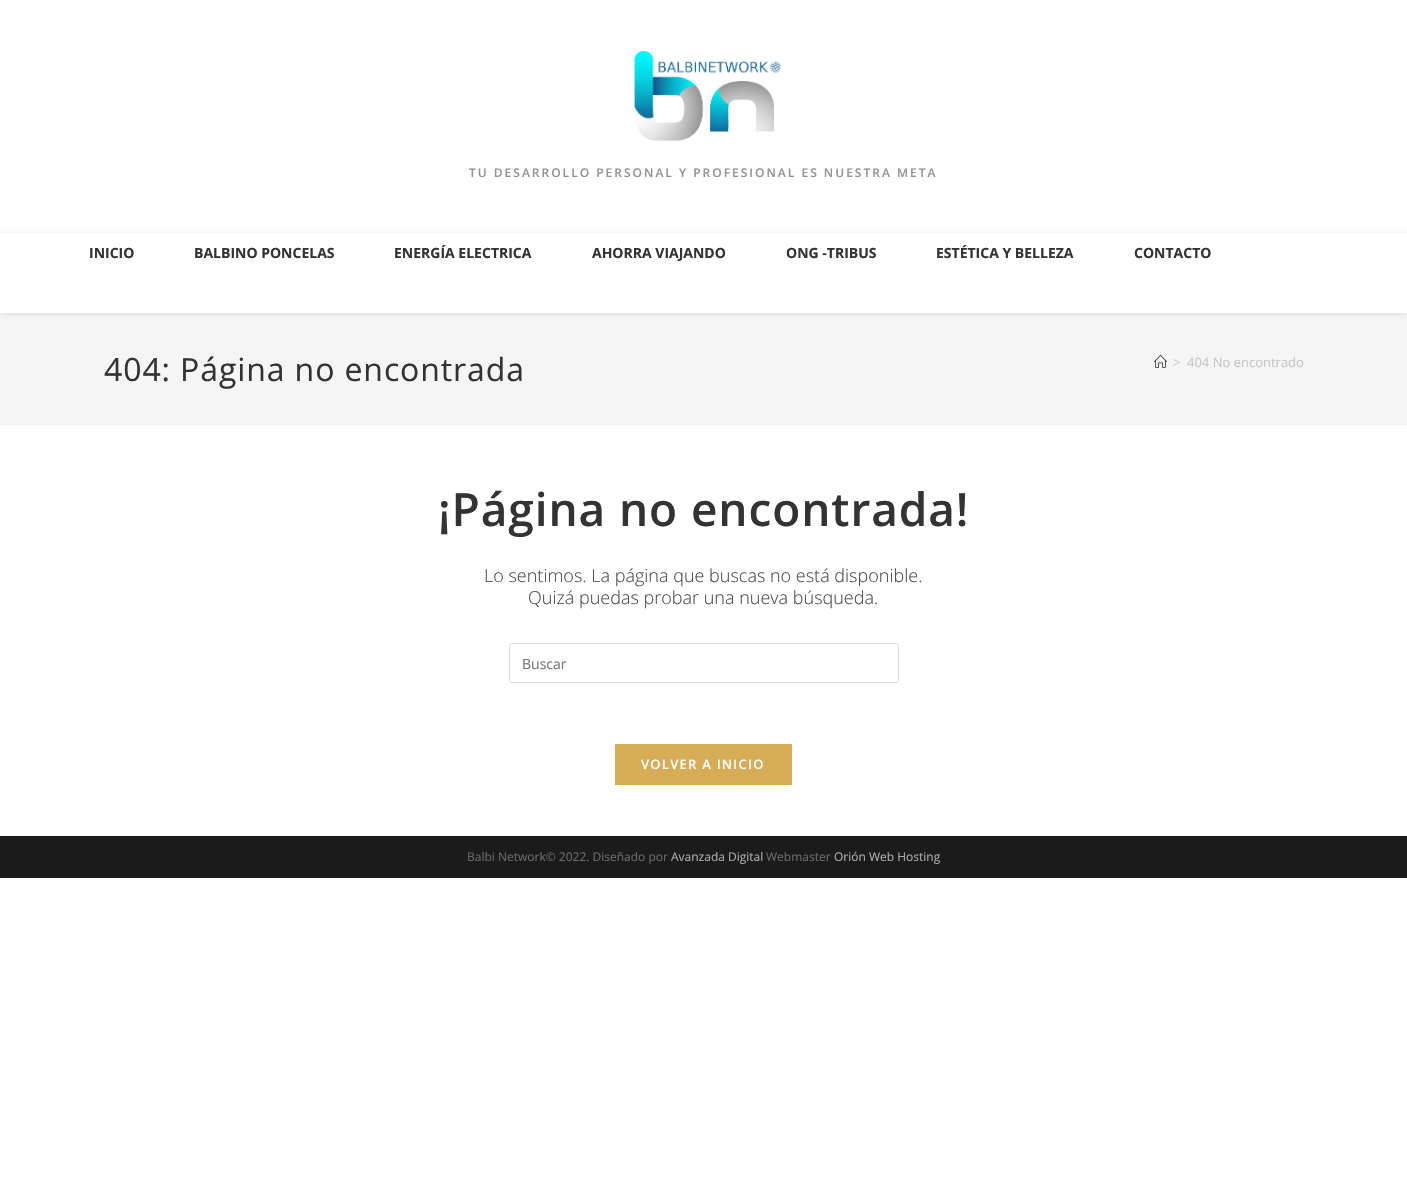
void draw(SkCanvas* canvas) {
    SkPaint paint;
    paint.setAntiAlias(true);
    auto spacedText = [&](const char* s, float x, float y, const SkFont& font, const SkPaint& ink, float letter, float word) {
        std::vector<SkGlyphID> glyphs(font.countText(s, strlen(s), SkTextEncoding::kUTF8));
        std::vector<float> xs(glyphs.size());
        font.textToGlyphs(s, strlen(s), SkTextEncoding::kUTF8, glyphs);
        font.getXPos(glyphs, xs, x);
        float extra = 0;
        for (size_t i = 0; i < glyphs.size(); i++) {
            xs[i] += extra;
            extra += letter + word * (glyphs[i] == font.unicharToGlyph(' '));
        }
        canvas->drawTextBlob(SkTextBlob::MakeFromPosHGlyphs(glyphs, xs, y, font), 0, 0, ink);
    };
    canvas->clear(0xFFFFFFFF);
    canvas->drawImageRect(SkImages::DeferredFromEncodedData(SkData::MakeFromFileName("img1.png")), SkRect::MakeXYWH(634, 51, 147, 91), SkSamplingOptions());
    SkFont font1(fontMgr->matchFamilyStyle("Open Sans", SkFontStyle(600, SkFontStyle::kNormal_Width, SkFontStyle::kUpright_Slant)), 12);
    font1.setSubpixel(true);
    paint.setColor(0xFF929292);
    spacedText("TU DESARROLLO PERSONAL Y PROFESIONAL ES NUESTRA META", 469, 177, font1, paint, 2, 0);
    paint.setColor(0xFFF5F5F5);
    canvas->drawRect(SkRect::MakeXYWH(0, 313, 1407, 113), paint);
    canvas->save();
    canvas->clipPath(SkPathBuilder(SkPathFillType::kEvenOdd).moveTo(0, 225).lineTo(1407, 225).lineTo(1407, 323).lineTo(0, 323).close().moveTo(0, 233).lineTo(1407, 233).lineTo(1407, 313).lineTo(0, 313).close().detach(), true);
    paint.setColor(0x1A000000);
    paint.setMaskFilter(SkMaskFilter::MakeBlur(kNormal_SkBlurStyle, 2.5f));
    canvas->drawRect(SkRect::MakeXYWH(0, 234, 1407, 80), paint);
    paint.setMaskFilter(nullptr);
    canvas->restore();
    SkFont font2(fontMgr->matchFamilyStyle("Open Sans", SkFontStyle::Bold()), 14);
    font2.setSubpixel(true);
    paint.setColor(0xFF333333);
    canvas->drawString("INICIO", 89, 258, font2, paint);
    canvas->drawString("BALBINO PONCELAS", 194, 258, font2, paint);
    canvas->drawString("ENERGÍA ELECTRICA", 394, 258, font2, paint);
    canvas->drawString("AHORRA VIAJANDO", 592, 258, font2, paint);
    canvas->drawString("ONG -TRIBUS", 786, 258, font2, paint);
    canvas->drawString("ESTÉTICA Y BELLEZA", 936, 258, font2, paint);
    canvas->drawString("CONTACTO", 1134, 258, font2, paint);
    SkFont font3(fontMgr->matchFamilyStyle("Open Sans", SkFontStyle::Normal()), 32);
    font3.setSubpixel(true);
    spacedText("404: Página no encontrada", 104, 381, font3, paint, 0.9f, 0);
    canvas->drawImageRect(SkImages::DeferredFromEncodedData(SkData::MakeFromFileName("img2.png")), SkRect::MakeXYWH(1154, 354, 13, 14), SkSamplingOptions());
    SkFont font4(fontMgr->matchFamilyStyle("Open Sans", SkFontStyle::Normal()), 13);
    font4.setSubpixel(true);
    paint.setColor(0xFFC6C6C6);
    canvas->drawString(">", 1173, 367, font4, paint);
    canvas->drawString("404 No encontrado", 1187, 367, font4, paint);
    SkFont font5(fontMgr->matchFamilyStyle("Open Sans", SkFontStyle(600, SkFontStyle::kNormal_Width, SkFontStyle::kUpright_Slant)), 46);
    font5.setSubpixel(true);
    paint.setColor(0xFF333333);
    spacedText("¡Página no encontrada!", 438, 526, font5, paint, 0.9f, 0);
    SkFont font6(fontMgr->matchFamilyStyle("Open Sans", SkFontStyle(300, SkFontStyle::kNormal_Width, SkFontStyle::kUpright_Slant)), 18);
    font6.setSubpixel(true);
    paint.setColor(0xFF4A4A4A);
    canvas->drawString("Lo sentimos. La página que buscas no está disponible.", 484, 582, font6, paint);
    canvas->drawString("Quizá puedas probar una nueva búsqueda.", 528, 604, font6, paint);
    paint.setStyle(SkPaint::kStroke_Style);
    paint.setStrokeWidth(1);
    paint.setColor(0xFFDDDDDD);
    canvas->drawRoundRect(SkRect::MakeXYWH(509.5f, 643.5f, 389, 39), 2.5f, 2.5f, paint);
    SkFont font7(fontMgr->matchFamilyStyle("Open Sans", SkFontStyle::Normal()), 14);
    font7.setSubpixel(true);
    paint.setStyle(SkPaint::kFill_Style);
    paint.setColor(0xFF757575);
    canvas->drawString("Buscar", 522, 669, font7, paint);
    paint.setColor(0xFFD6AC57);
    canvas->drawRect(SkRect::MakeXYWH(615, 744, 177, 41), paint);
    SkFont font8(fontMgr->matchFamilyStyle("Open Sans", SkFontStyle(600, SkFontStyle::kNormal_Width, SkFontStyle::kUpright_Slant)), 13);
    font8.setSubpixel(true);
    paint.setColor(0xFFFFFFFF);
    spacedText("VOLVER A INICIO", 641, 769, font8, paint, 1.25f, 0);
    paint.setColor(0xFF1B1B1B);
    canvas->drawRect(SkRect::MakeXYWH(0, 836, 1407, 42), paint);
    SkFont font9(fontMgr->matchFamilyStyle("Open Sans", SkFontStyle::Normal()), 12);
    font9.setSubpixel(true);
    paint.setColor(0xFF6B6B6B);
    canvas->drawString("Balbi Network© 2022. Diseñado por", 467, 861, font9, paint);
    paint.setColor(0xFFADADAD);
    canvas->drawString("Avanzada Digital", 671, 861, font9, paint);
    paint.setColor(0xFF6B6B6B);
    canvas->drawString("Webmaster", 766, 861, font9, paint);
    paint.setColor(0xFFADADAD);
    canvas->drawString("Orión Web Hosting", 834, 861, font9, paint);
}
